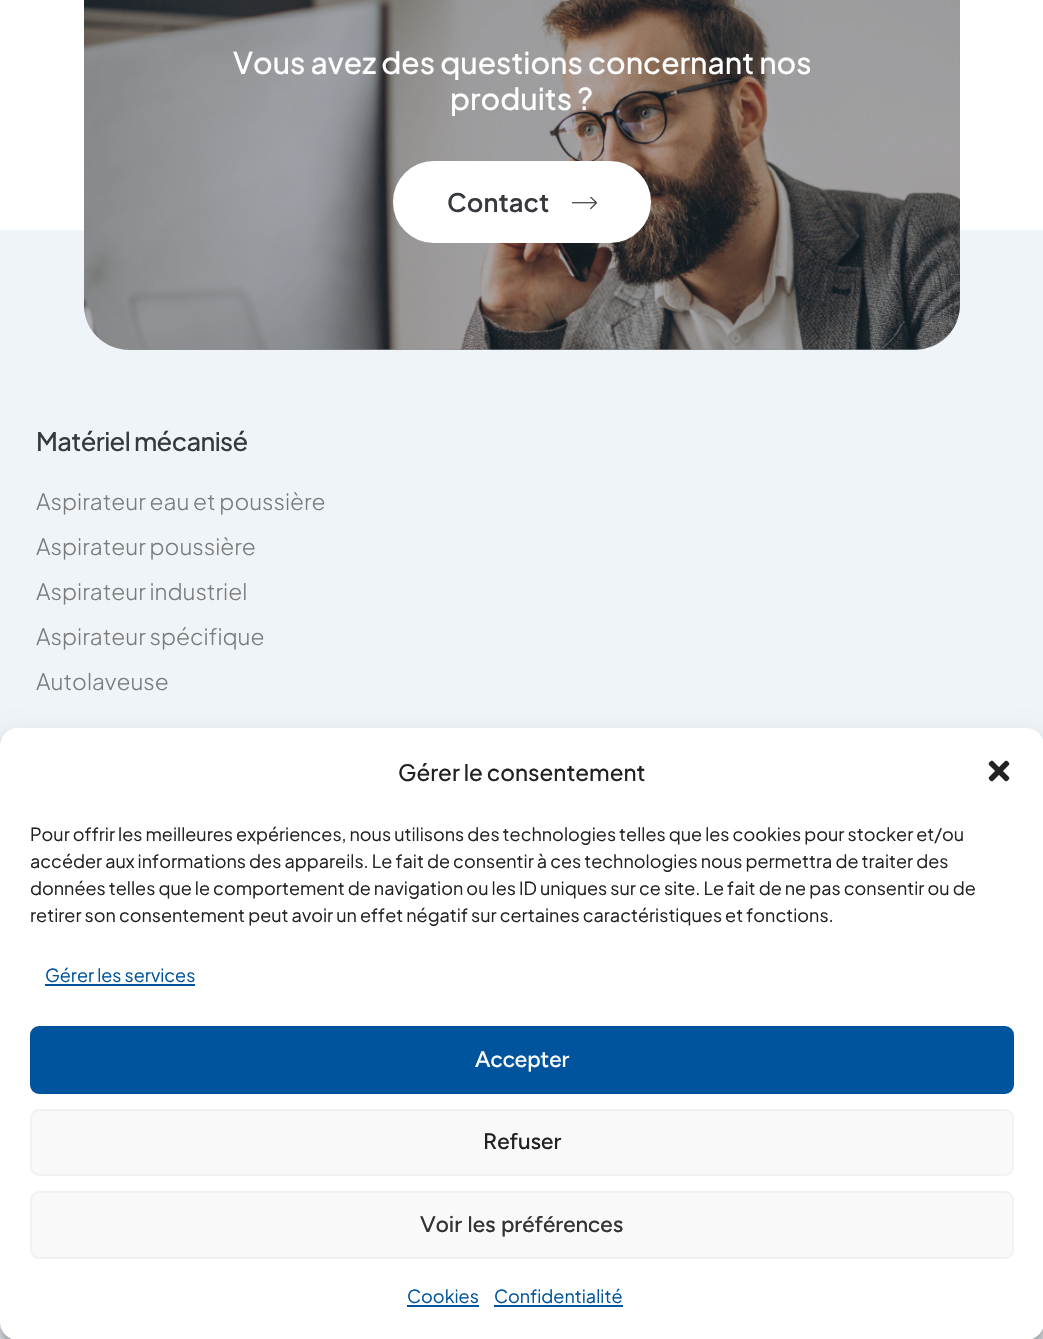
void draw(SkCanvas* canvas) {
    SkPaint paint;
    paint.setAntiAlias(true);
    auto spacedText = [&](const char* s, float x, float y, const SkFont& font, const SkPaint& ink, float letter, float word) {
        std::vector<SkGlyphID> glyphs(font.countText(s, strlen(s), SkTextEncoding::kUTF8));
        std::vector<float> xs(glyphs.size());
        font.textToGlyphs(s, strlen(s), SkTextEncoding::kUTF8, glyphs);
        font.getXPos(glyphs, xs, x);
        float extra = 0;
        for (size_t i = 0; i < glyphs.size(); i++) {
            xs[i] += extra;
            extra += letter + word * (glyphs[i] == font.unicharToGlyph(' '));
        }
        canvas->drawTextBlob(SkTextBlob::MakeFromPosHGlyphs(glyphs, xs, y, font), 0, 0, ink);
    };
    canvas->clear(0xFFFFFFFF);
    paint.setColor(0xFFEFF4F8);
    canvas->drawRect(SkRect::MakeXYWH(0, 230, 1043, 1109), paint);
    paint.setColor(0x4D36393D);
    canvas->drawRoundRect(SkRect::MakeXYWH(84, -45, 876, 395), 45, 45, paint);
    canvas->drawImageRect(SkImages::DeferredFromEncodedData(SkData::MakeFromFileName("img1.png")), SkRect::MakeXYWH(84, 0, 876, 350), SkSamplingOptions());
    canvas->drawRoundRect(SkRect::MakeXYWH(84, -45, 876, 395), 45, 45, paint);
    SkFont font1(fontMgr->matchFamilyStyle("Plus Jakarta Sans", SkFontStyle(500, SkFontStyle::kNormal_Width, SkFontStyle::kUpright_Slant)), 30);
    font1.setSubpixel(true);
    paint.setColor(0xFFFFFFFF);
    canvas->drawString("Vous avez des questions concernant nos", 233, 74, font1, paint);
    canvas->drawString("produits ?", 450, 110, font1, paint);
    canvas->drawRoundRect(SkRect::MakeXYWH(394, 162, 256, 80), 40, 40, paint);
    paint.setStyle(SkPaint::kStroke_Style);
    paint.setStrokeWidth(2);
    canvas->drawRoundRect(SkRect::MakeXYWH(394, 162, 256, 80), 40, 40, paint);
    SkFont font2(fontMgr->matchFamilyStyle("Plus Jakarta Sans", SkFontStyle(600, SkFontStyle::kNormal_Width, SkFontStyle::kUpright_Slant)), 25.5f);
    font2.setSubpixel(true);
    paint.setStyle(SkPaint::kFill_Style);
    paint.setColor(0xFF36393D);
    canvas->drawString("Contact", 447, 212, font2, paint);
    canvas->drawImageRect(SkImages::DeferredFromEncodedData(SkData::MakeFromFileName("img2.png")), SkRect::MakeXYWH(572, 197, 25, 12), SkSamplingOptions());
    SkFont font3(fontMgr->matchFamilyStyle("Plus Jakarta Sans", SkFontStyle(500, SkFontStyle::kNormal_Width, SkFontStyle::kUpright_Slant)), 25.5f);
    font3.setSubpixel(true);
    spacedText("Matériel mécanisé", 36, 451, font3, paint, -0.6f, 0);
    SkFont font4(fontMgr->matchFamilyStyle("Plus Jakarta Sans", SkFontStyle(300, SkFontStyle::kNormal_Width, SkFontStyle::kUpright_Slant)), 22.5f);
    font4.setSubpixel(true);
    paint.setColor(0xFF7A7A7A);
    canvas->drawString("Aspirateur eau et poussière", 36, 510, font4, paint);
    canvas->drawString("Aspirateur poussière", 36, 555, font4, paint);
    canvas->drawString("Aspirateur industriel", 36, 600, font4, paint);
    canvas->drawString("Aspirateur spécifique", 36, 645, font4, paint);
    canvas->drawString("Autolaveuse", 36, 690, font4, paint);
    paint.setColor(0x3B000000);
    paint.setMaskFilter(SkMaskFilter::MakeBlur(kNormal_SkBlurStyle, 4.5f));
    canvas->drawRoundRect(SkRect::MakeXYWH(0, 737, 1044, 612), 18, 18, paint);
    paint.setMaskFilter(nullptr);
    paint.setColor(0x30000000);
    paint.setMaskFilter(SkMaskFilter::MakeBlur(kNormal_SkBlurStyle, 15));
    canvas->drawRoundRect(SkRect::MakeXYWH(0, 743, 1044, 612), 18, 18, paint);
    paint.setMaskFilter(nullptr);
    paint.setColor(0xFFFFFFFF);
    canvas->drawRoundRect(SkRect::MakeXYWH(0, 728, 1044, 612), 18, 18, paint);
    SkFont font5(fontMgr->matchFamilyStyle("Plus Jakarta Sans", SkFontStyle(500, SkFontStyle::kNormal_Width, SkFontStyle::kUpright_Slant)), 22.5f);
    font5.setSubpixel(true);
    paint.setColor(0xFF222222);
    canvas->drawString("Gérer le consentement", 398, 781, font5, paint);
    canvas->drawImageRect(SkImages::DeferredFromEncodedData(SkData::MakeFromFileName("img3.png")), SkRect::MakeXYWH(988, 760, 22, 22), SkSamplingOptions());
    SkFont font6(fontMgr->matchFamilyStyle("Plus Jakarta Sans", SkFontStyle::Normal()), 18);
    font6.setSubpixel(true);
    canvas->drawString("Pour offrir les meilleures expériences, nous utilisons des technologies telles que les cookies pour stocker et/ou", 30, 841, font6, paint);
    canvas->drawString("accéder aux informations des appareils. Le fait de consentir à ces technologies nous permettra de traiter des", 30, 868, font6, paint);
    canvas->drawString("données telles que le comportement de navigation ou les ID uniques sur ce site. Le fait de ne pas consentir ou de", 30, 895, font6, paint);
    canvas->drawString("retirer son consentement peut avoir un effet négatif sur certaines caractéristiques et fonctions.", 30, 922, font6, paint);
    paint.setColor(0xFF00539D);
    canvas->drawString("Gérer les services", 45, 982, font6, paint);
    canvas->drawRect(SkRect::MakeXYWH(45, 984, 150, 2), paint);
    canvas->drawRoundRect(SkRect::MakeXYWH(31, 1027, 982, 66), 8, 8, paint);
    paint.setStyle(SkPaint::kStroke_Style);
    canvas->drawRoundRect(SkRect::MakeXYWH(31, 1027, 982, 66), 8, 8, paint);
    SkFont font7(fontMgr->matchFamilyStyle("Figtree", SkFontStyle(500, SkFontStyle::kNormal_Width, SkFontStyle::kUpright_Slant)), 22.5f);
    font7.setSubpixel(true);
    paint.setStyle(SkPaint::kFill_Style);
    paint.setColor(0xFFFFFFFF);
    canvas->drawString("Accepter", 475, 1067, font7, paint);
    paint.setColor(0xFFF9F9F9);
    canvas->drawRoundRect(SkRect::MakeXYWH(31, 1110, 982, 65), 8, 8, paint);
    paint.setStyle(SkPaint::kStroke_Style);
    paint.setColor(0xFFF2F2F2);
    canvas->drawRoundRect(SkRect::MakeXYWH(31, 1110, 982, 65), 8, 8, paint);
    paint.setStyle(SkPaint::kFill_Style);
    paint.setColor(0xFF222222);
    canvas->drawString("Refuser", 483, 1149, font7, paint);
    paint.setColor(0xFFF9F9F9);
    canvas->drawRoundRect(SkRect::MakeXYWH(31, 1192, 982, 66), 8, 8, paint);
    paint.setStyle(SkPaint::kStroke_Style);
    paint.setColor(0xFFF2F2F2);
    canvas->drawRoundRect(SkRect::MakeXYWH(31, 1192, 982, 66), 8, 8, paint);
    paint.setStyle(SkPaint::kFill_Style);
    paint.setColor(0xFF333333);
    canvas->drawString("Voir les préférences", 420, 1232, font7, paint);
    paint.setColor(0xFF00539D);
    canvas->drawString("Cookies", 407, 1303, font6, paint);
    canvas->drawRect(SkRect::MakeXYWH(407, 1305, 72, 2), paint);
    canvas->drawString("Confidentialité", 494, 1303, font6, paint);
    canvas->drawRect(SkRect::MakeXYWH(494, 1305, 129, 2), paint);
}
